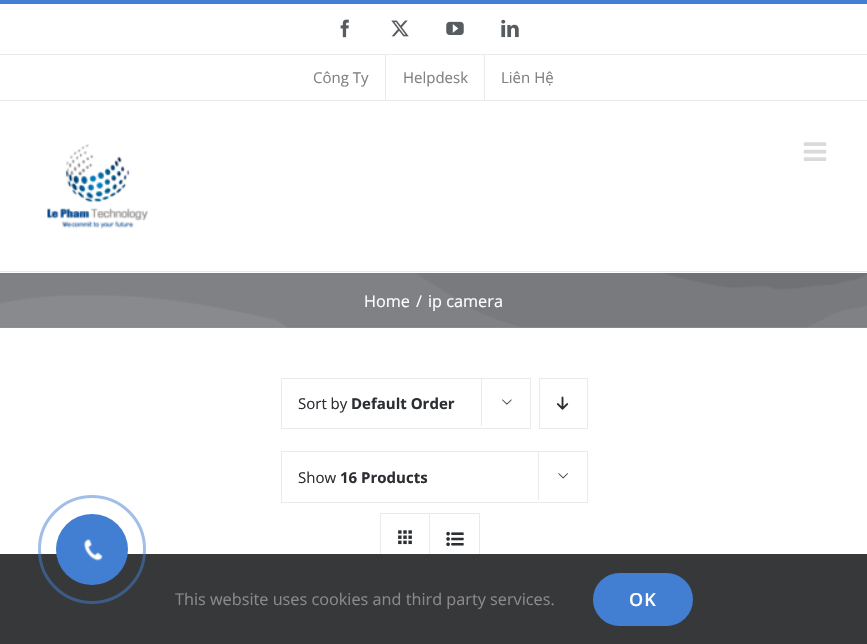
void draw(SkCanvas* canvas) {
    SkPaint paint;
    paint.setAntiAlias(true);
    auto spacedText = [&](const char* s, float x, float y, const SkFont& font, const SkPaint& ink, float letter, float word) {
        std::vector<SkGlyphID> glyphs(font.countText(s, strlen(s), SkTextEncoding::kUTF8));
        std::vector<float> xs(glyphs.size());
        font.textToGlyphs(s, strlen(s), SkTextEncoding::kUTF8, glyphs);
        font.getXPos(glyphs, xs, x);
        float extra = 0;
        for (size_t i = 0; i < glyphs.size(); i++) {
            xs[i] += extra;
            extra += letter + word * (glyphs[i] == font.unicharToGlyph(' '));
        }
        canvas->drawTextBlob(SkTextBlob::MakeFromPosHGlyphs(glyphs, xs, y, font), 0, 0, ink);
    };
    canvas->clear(0xFFFFFFFF);
    paint.setColor(0xFF427ED1);
    canvas->drawRect(SkRect::MakeXYWH(0, 0, 867, 4), paint);
    paint.setColor(0xFFEAEAEA);
    canvas->drawRect(SkRect::MakeXYWH(0, 100, 867, 1), paint);
    canvas->drawRect(SkRect::MakeXYWH(0, 54, 867, 1), paint);
    canvas->drawImageRect(SkImages::DeferredFromEncodedData(SkData::MakeFromFileName("img1.png")), SkRect::MakeXYWH(340, 19, 9, 19), SkSamplingOptions());
    canvas->drawImageRect(SkImages::DeferredFromEncodedData(SkData::MakeFromFileName("img2.png")), SkRect::MakeXYWH(391, 20, 18, 17), SkSamplingOptions());
    canvas->drawImageRect(SkImages::DeferredFromEncodedData(SkData::MakeFromFileName("img3.png")), SkRect::MakeXYWH(446, 21, 18, 14), SkSamplingOptions());
    canvas->drawImageRect(SkImages::DeferredFromEncodedData(SkData::MakeFromFileName("img4.png")), SkRect::MakeXYWH(501, 19, 18, 19), SkSamplingOptions());
    SkFont font1(fontMgr->matchFamilyStyle("Open Sans", SkFontStyle::Normal()), 15);
    font1.setSubpixel(true);
    paint.setColor(0xFF808080);
    canvas->drawString("Công Ty", 313, 83, font1, paint);
    paint.setColor(0xFFEAEAEA);
    canvas->drawRect(SkRect::MakeXYWH(385, 55, 1, 45), paint);
    paint.setColor(0xFF808080);
    canvas->drawString("Helpdesk", 403, 83, font1, paint);
    paint.setColor(0xFFEAEAEA);
    canvas->drawRect(SkRect::MakeXYWH(484, 55, 1, 45), paint);
    paint.setColor(0xFF808080);
    canvas->drawString("Liên Hệ", 501, 83, font1, paint);
    paint.setColor(0xFFEAEAEA);
    canvas->drawRect(SkRect::MakeXYWH(0, 271, 867, 1), paint);
    canvas->drawImageRect(SkImages::DeferredFromEncodedData(SkData::MakeFromFileName("img5.png")), SkRect::MakeXYWH(47, 144, 101, 85), SkSamplingOptions());
    canvas->drawImageRect(SkImages::DeferredFromEncodedData(SkData::MakeFromFileName("img6.png")), SkRect::MakeXYWH(803, 142, 24, 19), SkSamplingOptions());
    paint.setColor(0xFF999999);
    canvas->drawRect(SkRect::MakeXYWH(0, 327, 867, 1), paint);
    canvas->drawImageRect(SkImages::DeferredFromEncodedData(SkData::MakeFromFileName("img7.png")), SkRect::MakeXYWH(0, 273, 867, 55), SkSamplingOptions());
    SkFont font2(fontMgr->matchFamilyStyle("Open Sans", SkFontStyle::Normal()), 16.25f);
    font2.setSubpixel(true);
    paint.setColor(0xFFFFFFFF);
    canvas->drawString("Home", 364, 307, font2, paint);
    canvas->drawString("/", 416, 307, font2, paint);
    canvas->drawString("ip camera", 428, 307, font2, paint);
    paint.setStyle(SkPaint::kStroke_Style);
    paint.setStrokeWidth(1);
    paint.setColor(0xFFEAEAEA);
    canvas->drawRect(SkRect::MakeXYWH(281.5f, 378.5f, 249, 50), paint);
    paint.setStyle(SkPaint::kFill_Style);
    paint.setColor(0xFF2B2E32);
    canvas->drawString("Sort by", 298, 409, font1, paint);
    SkFont font3(fontMgr->matchFamilyStyle("Open Sans", SkFontStyle::Bold()), 15);
    font3.setSubpixel(true);
    canvas->drawString("Default Order", 351, 409, font3, paint);
    paint.setColor(0xFFEAEAEA);
    canvas->drawRect(SkRect::MakeXYWH(481, 378, 1, 48), paint);
    canvas->drawImageRect(SkImages::DeferredFromEncodedData(SkData::MakeFromFileName("img8.png")), SkRect::MakeXYWH(502, 399, 10, 6), SkSamplingOptions());
    paint.setStyle(SkPaint::kStroke_Style);
    canvas->drawRect(SkRect::MakeXYWH(539.5f, 378.5f, 48, 50), paint);
    canvas->drawImageRect(SkImages::DeferredFromEncodedData(SkData::MakeFromFileName("img9.png")), SkRect::MakeXYWH(556, 396, 13, 14), SkSamplingOptions());
    canvas->drawRect(SkRect::MakeXYWH(281.5f, 451.5f, 306, 51), paint);
    paint.setStyle(SkPaint::kFill_Style);
    paint.setColor(0xFF2B2E32);
    canvas->drawString("Show", 298, 483, font1, paint);
    canvas->drawString("16 Products", 340, 483, font3, paint);
    paint.setColor(0xFFEAEAEA);
    canvas->drawRect(SkRect::MakeXYWH(538, 451, 1, 49), paint);
    canvas->drawImageRect(SkImages::DeferredFromEncodedData(SkData::MakeFromFileName("img10.png")), SkRect::MakeXYWH(558, 473, 10, 6), SkSamplingOptions());
    paint.setStyle(SkPaint::kStroke_Style);
    canvas->drawRect(SkRect::MakeXYWH(380.5f, 513.5f, 99, 50), paint);
    paint.setStyle(SkPaint::kFill_Style);
    canvas->drawRect(SkRect::MakeXYWH(429, 514, 1, 40), paint);
    canvas->drawImageRect(SkImages::DeferredFromEncodedData(SkData::MakeFromFileName("img11.png")), SkRect::MakeXYWH(398, 530, 14, 15), SkSamplingOptions());
    canvas->drawImageRect(SkImages::DeferredFromEncodedData(SkData::MakeFromFileName("img12.png")), SkRect::MakeXYWH(446, 531, 18, 16), SkSamplingOptions());
    paint.setColor(0xFF363839);
    canvas->drawRect(SkRect::MakeXYWH(0, 554, 867, 90), paint);
    paint.setStyle(SkPaint::kStroke_Style);
    paint.setStrokeWidth(3);
    paint.setColor(0x80427ED1);
    canvas->drawRoundRect(SkRect::MakeXYWH(39.5f, 496.5f, 105, 106), 52.5f, 52.5f, paint);
    paint.setStyle(SkPaint::kFill_Style);
    paint.setColor(0xFF427ED1);
    canvas->drawRoundRect(SkRect::MakeXYWH(56, 514, 72, 71), 35.5f, 35.5f, paint);
    canvas->drawImageRect(SkImages::DeferredFromEncodedData(SkData::MakeFromFileName("img13.png")), SkRect::MakeXYWH(83, 539, 20, 22), SkSamplingOptions());
    paint.setColor(0xFF8C8989);
    canvas->drawString("This website uses cookies and third party services.", 175, 605, font2, paint);
    paint.setColor(0xFF427ED1);
    canvas->drawRoundRect(SkRect::MakeXYWH(593, 573, 100, 53), 26.5f, 26.5f, paint);
    SkFont font4(fontMgr->matchFamilyStyle("Open Sans", SkFontStyle(600, SkFontStyle::kNormal_Width, SkFontStyle::kUpright_Slant)), 18);
    font4.setSubpixel(true);
    paint.setColor(0xFFFFFFFF);
    spacedText("OK", 629, 606, font4, paint, 1, 0);
}
